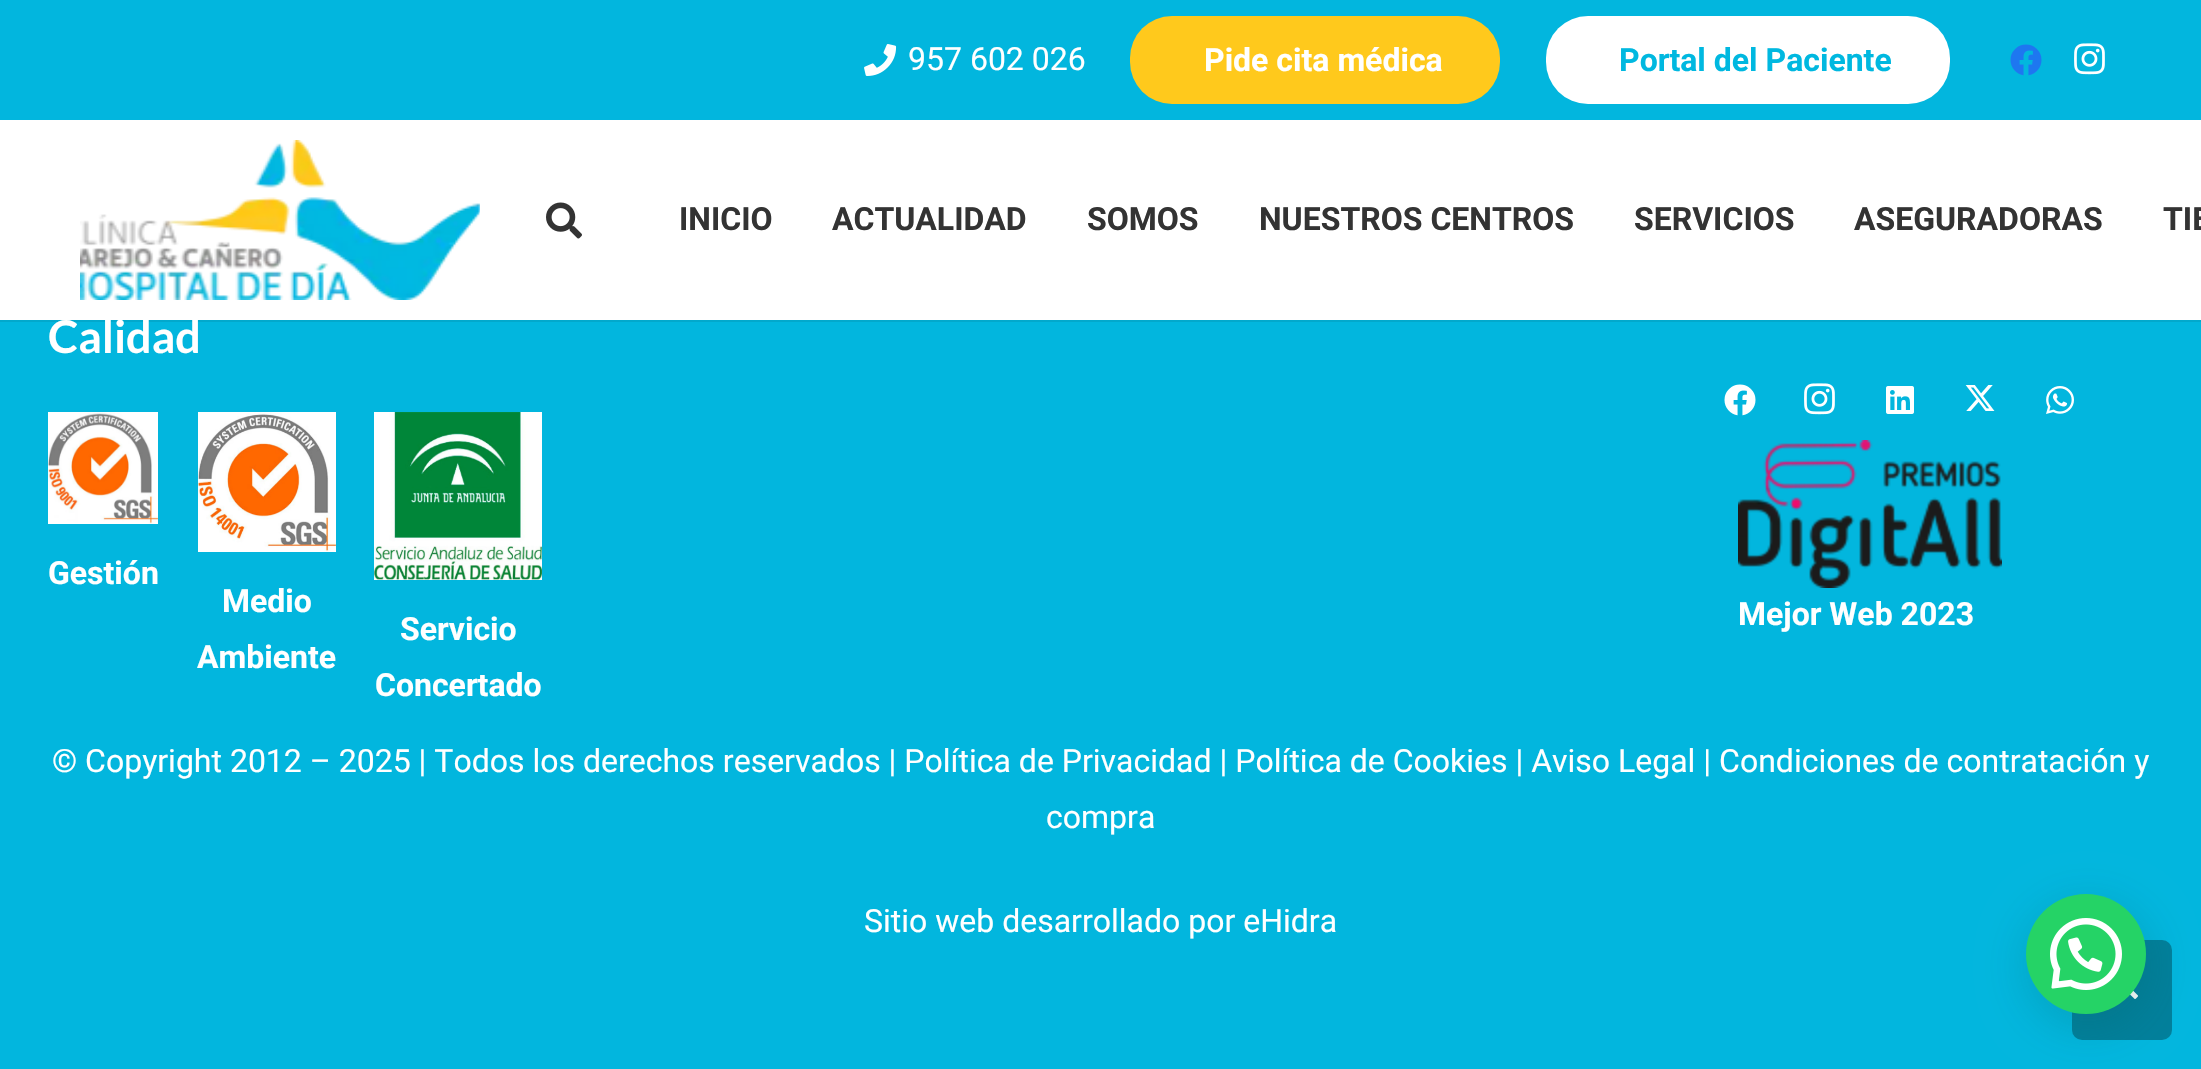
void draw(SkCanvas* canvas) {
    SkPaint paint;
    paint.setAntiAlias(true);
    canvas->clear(0xFF02B6DE);
    canvas->drawImageRect(SkImages::DeferredFromEncodedData(SkData::MakeFromFileName("img1.png")), SkRect::MakeXYWH(864, 44, 33, 32), SkSamplingOptions());
    SkFont font1(fontMgr->matchFamilyStyle("Roboto", SkFontStyle::Normal()), 32);
    font1.setSubpixel(true);
    paint.setColor(0xFFFFFFFF);
    canvas->drawString("957 602 026", 908, 70, font1, paint);
    paint.setColor(0xFFFFC91C);
    canvas->drawRoundRect(SkRect::MakeXYWH(1130, 16, 370, 88), 42, 42, paint);
    SkFont font2(fontMgr->matchFamilyStyle("Roboto", SkFontStyle::Bold()), 32);
    font2.setSubpixel(true);
    paint.setColor(0xFFFFFFFF);
    canvas->drawString("Pide cita médica", 1204, 71, font2, paint);
    canvas->drawRoundRect(SkRect::MakeXYWH(1546, 16, 404, 88), 42, 42, paint);
    paint.setColor(0xFF00B8E0);
    canvas->drawString("Portal del Paciente", 1619, 71, font2, paint);
    canvas->drawImageRect(SkImages::DeferredFromEncodedData(SkData::MakeFromFileName("img2.png")), SkRect::MakeXYWH(2010, 44, 32, 32), SkSamplingOptions());
    canvas->drawImageRect(SkImages::DeferredFromEncodedData(SkData::MakeFromFileName("img3.png")), SkRect::MakeXYWH(2074, 43, 31, 32), SkSamplingOptions());
    paint.setColor(0x14000000);
    canvas->drawRect(SkRect::MakeXYWH(0, 320, 2201, 2), paint);
    paint.setColor(0xFFFFFFFF);
    canvas->drawRect(SkRect::MakeXYWH(0, 120, 2201, 200), paint);
    canvas->drawImageRect(SkImages::DeferredFromEncodedData(SkData::MakeFromFileName("img4.png")), SkRect::MakeXYWH(80, 140, 400, 160), SkSamplingOptions());
    canvas->drawImageRect(SkImages::DeferredFromEncodedData(SkData::MakeFromFileName("img5.png")), SkRect::MakeXYWH(546, 202, 36, 37), SkSamplingOptions());
    paint.setColor(0xFF333333);
    canvas->drawString("INICIO", 679, 230, font2, paint);
    canvas->drawString("ACTUALIDAD", 832, 230, font2, paint);
    canvas->drawString("SOMOS", 1087, 230, font2, paint);
    canvas->drawString("NUESTROS CENTROS", 1259, 230, font2, paint);
    canvas->drawString("SERVICIOS", 1634, 230, font2, paint);
    canvas->drawString("ASEGURADORAS", 1854, 230, font2, paint);
    canvas->drawString("TIE", 2163, 230, font2, paint);
    SkFont font3(fontMgr->matchFamilyStyle("Lato", SkFontStyle::Bold()), 45);
    font3.setSubpixel(true);
    paint.setColor(0xFFFFFFFF);
    canvas->drawString("Calidad", 48, 353, font3, paint);
    canvas->drawImageRect(SkImages::DeferredFromEncodedData(SkData::MakeFromFileName("img6.png")), SkRect::MakeXYWH(48, 412, 110, 112), SkSamplingOptions());
    canvas->drawString("Gestión", 48, 584, font2, paint);
    canvas->drawImageRect(SkImages::DeferredFromEncodedData(SkData::MakeFromFileName("img7.png")), SkRect::MakeXYWH(198, 412, 138, 140), SkSamplingOptions());
    canvas->drawString("Medio", 222, 612, font2, paint);
    canvas->drawString("Ambiente", 197, 668, font2, paint);
    canvas->drawImageRect(SkImages::DeferredFromEncodedData(SkData::MakeFromFileName("img8.png")), SkRect::MakeXYWH(374, 412, 168, 168), SkSamplingOptions());
    canvas->drawString("Servicio", 400, 640, font2, paint);
    canvas->drawString("Concertado", 375, 696, font2, paint);
    canvas->drawImageRect(SkImages::DeferredFromEncodedData(SkData::MakeFromFileName("img9.png")), SkRect::MakeXYWH(1724, 384, 32, 32), SkSamplingOptions());
    canvas->drawImageRect(SkImages::DeferredFromEncodedData(SkData::MakeFromFileName("img10.png")), SkRect::MakeXYWH(1804, 383, 31, 32), SkSamplingOptions());
    canvas->drawImageRect(SkImages::DeferredFromEncodedData(SkData::MakeFromFileName("img11.png")), SkRect::MakeXYWH(1886, 386, 28, 28), SkSamplingOptions());
    canvas->drawImageRect(SkImages::DeferredFromEncodedData(SkData::MakeFromFileName("img12.png")), SkRect::MakeXYWH(1965, 385, 30, 26), SkSamplingOptions());
    canvas->drawImageRect(SkImages::DeferredFromEncodedData(SkData::MakeFromFileName("img13.png")), SkRect::MakeXYWH(2046, 386, 28, 28), SkSamplingOptions());
    canvas->drawImageRect(SkImages::DeferredFromEncodedData(SkData::MakeFromFileName("img14.png")), SkRect::MakeXYWH(1738, 440, 264, 148), SkSamplingOptions());
    canvas->drawString("Mejor Web 2023", 1738, 625, font2, paint);
    canvas->drawString("© Copyright 2012 – 2025 | Todos los derechos reservados | Política de Privacidad | Política de Cookies | Aviso Legal | Condiciones de contratación y", 52, 772, font1, paint);
    canvas->drawString("compra", 1046, 828, font1, paint);
    canvas->drawString("Sitio web desarrollado por eHidra", 864, 932, font1, paint);
    paint.setColor(0xFF017F9B);
    canvas->drawRoundRect(SkRect::MakeXYWH(2072, 940, 100, 100), 10, 10, paint);
    canvas->drawImageRect(SkImages::DeferredFromEncodedData(SkData::MakeFromFileName("img16.png")), SkRect::MakeXYWH(2129, 990, 9, 9), SkSamplingOptions());
    paint.setColor(0x3D075E54);
    paint.setMaskFilter(SkMaskFilter::MakeBlur(kNormal_SkBlurStyle, 24));
    canvas->drawRoundRect(SkRect::MakeXYWH(2028, 906, 120, 120), 60, 60, paint);
    paint.setMaskFilter(nullptr);
    paint.setColor(0xFF25D366);
    canvas->drawCircle(2086, 954, 60, paint);
    canvas->drawImageRect(SkImages::DeferredFromEncodedData(SkData::MakeFromFileName("img15.png")), SkRect::MakeXYWH(2050, 918, 72, 72), SkSamplingOptions());
}
